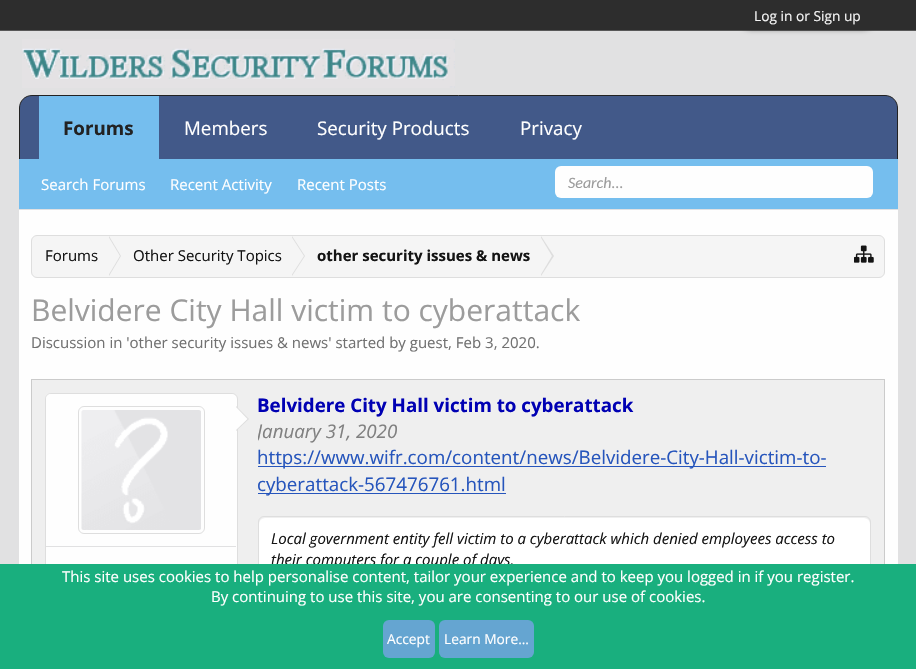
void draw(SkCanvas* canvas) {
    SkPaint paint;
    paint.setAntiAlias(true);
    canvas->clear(0xFFE1E1E2);
    paint.setColor(0xFF2D2D2D);
    canvas->drawRect(SkRect::MakeXYWH(0, 0, 916, 30), paint);
    paint.setColor(0xFF585858);
    canvas->drawRect(SkRect::MakeXYWH(0, 30, 916, 1), paint);
    canvas->save();
    canvas->clipPath(SkPathBuilder(SkPathFillType::kEvenOdd).moveTo(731, 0).lineTo(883, 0).lineTo(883, 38).lineTo(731, 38).close().moveTo(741, 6).lineTo(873, 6).lineTo(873, 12).cubicTo(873, 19, 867, 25, 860, 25).lineTo(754, 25).cubicTo(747, 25, 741, 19, 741, 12).close().detach(), true);
    paint.setColor(0xFF2D2D2D);
    paint.setMaskFilter(SkMaskFilter::MakeBlur(kNormal_SkBlurStyle, 3));
    canvas->drawRoundRect(SkRect::MakeXYWH(741, 9, 132, 19), 13, 13, paint);
    paint.setMaskFilter(nullptr);
    canvas->restore();
    SkFont font1(fontMgr->matchFamilyStyle("Open Sans", SkFontStyle::Normal()), 13.75f);
    font1.setSubpixel(true);
    paint.setColor(0xFFF5F5F5);
    canvas->drawString("Log in or Sign up", 754, 21, font1, paint);
    canvas->drawImageRect(SkImages::DeferredFromEncodedData(SkData::MakeFromFileName("img1.png")), SkRect::MakeXYWH(22, 39, 433, 49), SkSamplingOptions());
    paint.setColor(0xFF425989);
    canvas->drawPath(SkPathBuilder().moveTo(32, 95.5f).lineTo(885, 95.5f).cubicTo(892, 95.5f, 897.5f, 101, 897.5f, 108).lineTo(897.5f, 159.5f).lineTo(19.5f, 159.5f).lineTo(19.5f, 108).cubicTo(19.5f, 101, 25, 95.5f, 32, 95.5f).close().detach(), paint);
    paint.setStyle(SkPaint::kStroke_Style);
    paint.setStrokeWidth(1);
    paint.setColor(0xFF222222);
    canvas->drawPath(SkPathBuilder().moveTo(32, 95.5f).lineTo(885, 95.5f).cubicTo(892, 95.5f, 897.5f, 101, 897.5f, 108).lineTo(897.5f, 159.5f).lineTo(19.5f, 159.5f).lineTo(19.5f, 108).cubicTo(19.5f, 101, 25, 95.5f, 32, 95.5f).close().detach(), paint);
    SkFont font2(fontMgr->matchFamilyStyle("Open Sans", SkFontStyle::Normal()), 18.75f);
    font2.setSubpixel(true);
    paint.setStyle(SkPaint::kFill_Style);
    paint.setColor(0xFFFFFFFF);
    canvas->drawString("Members", 184, 135, font2, paint);
    canvas->drawString("Security Products", 317, 135, font2, paint);
    paint.setColor(0xFF75BEEE);
    canvas->drawRect(SkRect::MakeXYWH(39, 96, 120, 63), paint);
    SkFont font3(fontMgr->matchFamilyStyle("Open Sans", SkFontStyle::Bold()), 18.75f);
    font3.setSubpixel(true);
    paint.setColor(0xFF222222);
    canvas->drawString("Forums", 63, 135, font3, paint);
    paint.setColor(0xFF75BEEE);
    canvas->drawRect(SkRect::MakeXYWH(19, 159, 879, 50), paint);
    SkFont font4(fontMgr->matchFamilyStyle("Open Sans", SkFontStyle::Normal()), 15);
    font4.setSubpixel(true);
    paint.setColor(0xFFFFFFFF);
    canvas->drawString("Search Forums", 41, 190, font4, paint);
    canvas->drawString("Recent Activity", 170, 190, font4, paint);
    canvas->drawString("Recent Posts", 297, 190, font4, paint);
    canvas->drawString("Privacy", 520, 135, font2, paint);
    paint.setColor(0xFFFEFEFE);
    canvas->drawRoundRect(SkRect::MakeXYWH(555, 166, 318, 32), 6, 6, paint);
    SkFont font5(fontMgr->matchFamilyStyle("Carlito", SkFontStyle::Italic()), 16);
    font5.setSubpixel(true);
    paint.setColor(0xFF9C9C9C);
    canvas->drawString("Search...", 568, 188, font5, paint);
    paint.setColor(0xFFFEFEFE);
    canvas->drawRect(SkRect::MakeXYWH(19, 210, 879, 354), paint);
    paint.setColor(0xFFF5F5F5);
    canvas->drawRoundRect(SkRect::MakeXYWH(31.5f, 235.5f, 853, 42), 5.5f, 5.5f, paint);
    paint.setStyle(SkPaint::kStroke_Style);
    paint.setColor(0xFFDEDEDE);
    canvas->drawRoundRect(SkRect::MakeXYWH(31.5f, 235.5f, 853, 42), 5.5f, 5.5f, paint);
    paint.setStyle(SkPaint::kFill_Style);
    paint.setColor(0xFF141414);
    canvas->drawString("Forums", 45, 261, font4, paint);
    paint.setColor(0xFFDEDEDE);
    canvas->drawPath(SkPathBuilder().moveTo(109, 276).lineTo(109, 236).lineTo(121, 256).close().detach(), paint);
    paint.setColor(0xFFF5F5F5);
    canvas->drawPath(SkPathBuilder().moveTo(108, 276).lineTo(108, 236).lineTo(120, 256).close().detach(), paint);
    paint.setColor(0xFF141414);
    canvas->drawString("Other Security Topics", 133, 261, font4, paint);
    paint.setColor(0xFFDEDEDE);
    canvas->drawPath(SkPathBuilder().moveTo(292, 276).lineTo(292, 236).lineTo(305, 256).close().detach(), paint);
    paint.setColor(0xFFF5F5F5);
    canvas->drawPath(SkPathBuilder().moveTo(291, 276).lineTo(291, 236).lineTo(304, 256).close().detach(), paint);
    SkFont font6(fontMgr->matchFamilyStyle("Open Sans", SkFontStyle::Bold()), 15);
    font6.setSubpixel(true);
    paint.setColor(0xFF141414);
    canvas->drawString("other security issues & news", 317, 261, font6, paint);
    paint.setColor(0xFFDEDEDE);
    canvas->drawPath(SkPathBuilder().moveTo(541, 276).lineTo(541, 236).lineTo(554, 256).close().detach(), paint);
    paint.setColor(0xFFF5F5F5);
    canvas->drawPath(SkPathBuilder().moveTo(540, 276).lineTo(540, 236).lineTo(552, 256).close().detach(), paint);
    canvas->drawImageRect(SkImages::DeferredFromEncodedData(SkData::MakeFromFileName("img2.png")), SkRect::MakeXYWH(854, 245, 20, 18), SkSamplingOptions());
    SkFont font7(fontMgr->matchFamilyStyle("Open Sans", SkFontStyle::Normal()), 30);
    font7.setSubpixel(true);
    paint.setColor(0xFF9C9C9C);
    canvas->drawString("Belvidere City Hall victim to cyberattack", 31, 321, font7, paint);
    paint.setColor(0xFF717171);
    canvas->drawString("Discussion in 'other security issues & news' started by guest, Feb 3, 2020.", 31, 348, font4, paint);
    paint.setColor(0xFFEFEFEF);
    canvas->drawRect(SkRect::MakeXYWH(32, 380, 852, 184), paint);
    paint.setStyle(SkPaint::kStroke_Style);
    paint.setColor(0xFFCBCBCB);
    canvas->drawRect(SkRect::MakeXYWH(31.5f, 379.5f, 853, 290), paint);
    paint.setStyle(SkPaint::kFill_Style);
    paint.setColor(0xFFFEFEFE);
    canvas->drawRoundRect(SkRect::MakeXYWH(45.5f, 393.5f, 192, 220), 5.5f, 5.5f, paint);
    paint.setStyle(SkPaint::kStroke_Style);
    paint.setColor(0xFFDEDEDE);
    canvas->drawRoundRect(SkRect::MakeXYWH(45.5f, 393.5f, 192, 220), 5.5f, 5.5f, paint);
    paint.setStyle(SkPaint::kFill_Style);
    paint.setColor(0xFFFEFEFE);
    canvas->drawRoundRect(SkRect::MakeXYWH(46, 394, 190, 152), 5, 5, paint);
    paint.setStyle(SkPaint::kStroke_Style);
    paint.setColor(0xFFDEDEDE);
    canvas->drawRoundRect(SkRect::MakeXYWH(78.5f, 406.5f, 126, 127), 5.5f, 5.5f, paint);
    canvas->drawImageRect(SkImages::DeferredFromEncodedData(SkData::MakeFromFileName("img3.png")), SkRect::MakeXYWH(81, 410, 120, 120), SkSamplingOptions());
    paint.setStyle(SkPaint::kFill_Style);
    canvas->drawPath(SkPathBuilder().moveTo(236, 431).lineTo(236, 406).lineTo(249, 419).close().detach(), paint);
    paint.setColor(0xFFFEFEFE);
    canvas->drawPath(SkPathBuilder().moveTo(235, 431).lineTo(235, 406).lineTo(247.5f, 419).close().detach(), paint);
    paint.setColor(0xFFE1E1E2);
    canvas->drawRect(SkRect::MakeXYWH(46, 546, 190, 1), paint);
    paint.setColor(0xFF0000B3);
    canvas->drawString("Belvidere City Hall victim to cyberattack", 257, 412, font3, paint);
    canvas->save();
    canvas->clipRect(SkRect::MakeXYWH(258, 393, 613, 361));
    SkFont font8(fontMgr->matchFamilyStyle("Open Sans", SkFontStyle::Italic()), 18.75f);
    font8.setSubpixel(true);
    paint.setColor(0xFF808080);
    canvas->drawString("January 31, 2020", 257, 438, font8, paint);
    canvas->restore();
    paint.setColor(0xFF2655BC);
    canvas->drawRect(SkRect::MakeXYWH(258, 466, 568, 1), paint);
    canvas->drawString("https://www.wifr.com/content/news/Belvidere-City-Hall-victim-to-", 257, 464, font2, paint);
    canvas->drawRect(SkRect::MakeXYWH(258, 493, 248, 1), paint);
    canvas->drawString("cyberattack-567476761.html", 257, 491, font2, paint);
    paint.setStyle(SkPaint::kStroke_Style);
    paint.setColor(0xFFDEDEDE);
    canvas->drawRoundRect(SkRect::MakeXYWH(258.5f, 516.5f, 612, 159), 5.5f, 5.5f, paint);
    canvas->save();
    canvas->clipPath(SkPathBuilder().moveTo(264, 518).lineTo(865, 518).cubicTo(868, 518, 870, 520, 870, 523).lineTo(870, 726).cubicTo(870, 729, 868, 731, 865, 731).lineTo(264, 731).cubicTo(261, 731, 259, 729, 259, 726).lineTo(259, 523).cubicTo(259, 520, 261, 518, 264, 518).close().detach(), true);
    paint.setStyle(SkPaint::kFill_Style);
    paint.setColor(0xFFFFFFFF);
    canvas->drawRoundRect(SkRect::MakeXYWH(259, 518, 611, 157), 6, 6, paint);
    canvas->restore();
    SkFont font9(fontMgr->matchFamilyStyle("Open Sans", SkFontStyle::Italic()), 15);
    font9.setSubpixel(true);
    paint.setColor(0xFF141414);
    canvas->drawString("Local government entity fell victim to a cyberattack which denied employees access to", 271, 544, font9, paint);
    canvas->drawString("their computers for a couple of days.", 271, 565, font9, paint);
    paint.setColor(0xFF19AF7E);
    canvas->drawRect(SkRect::MakeXYWH(0, 564, 916, 105), paint);
    paint.setColor(0xFFFFFFFF);
    canvas->drawString("This site uses cookies to help personalise content, tailor your experience and to keep you logged in if you register.", 62, 582, font4, paint);
    canvas->drawString("By continuing to use this site, you are consenting to our use of cookies.", 211, 602, font4, paint);
    paint.setColor(0xFF65A5D1);
    canvas->drawRoundRect(SkRect::MakeXYWH(383, 620, 52, 38), 6, 6, paint);
    paint.setColor(0xFFFFFFFF);
    canvas->drawString("Accept", 387, 644, font1, paint);
    paint.setColor(0xFF65A5D1);
    canvas->drawRoundRect(SkRect::MakeXYWH(439, 620, 95, 38), 6, 6, paint);
    paint.setColor(0xFFFFFFFF);
    canvas->drawString("Learn More...", 444, 644, font1, paint);
}
